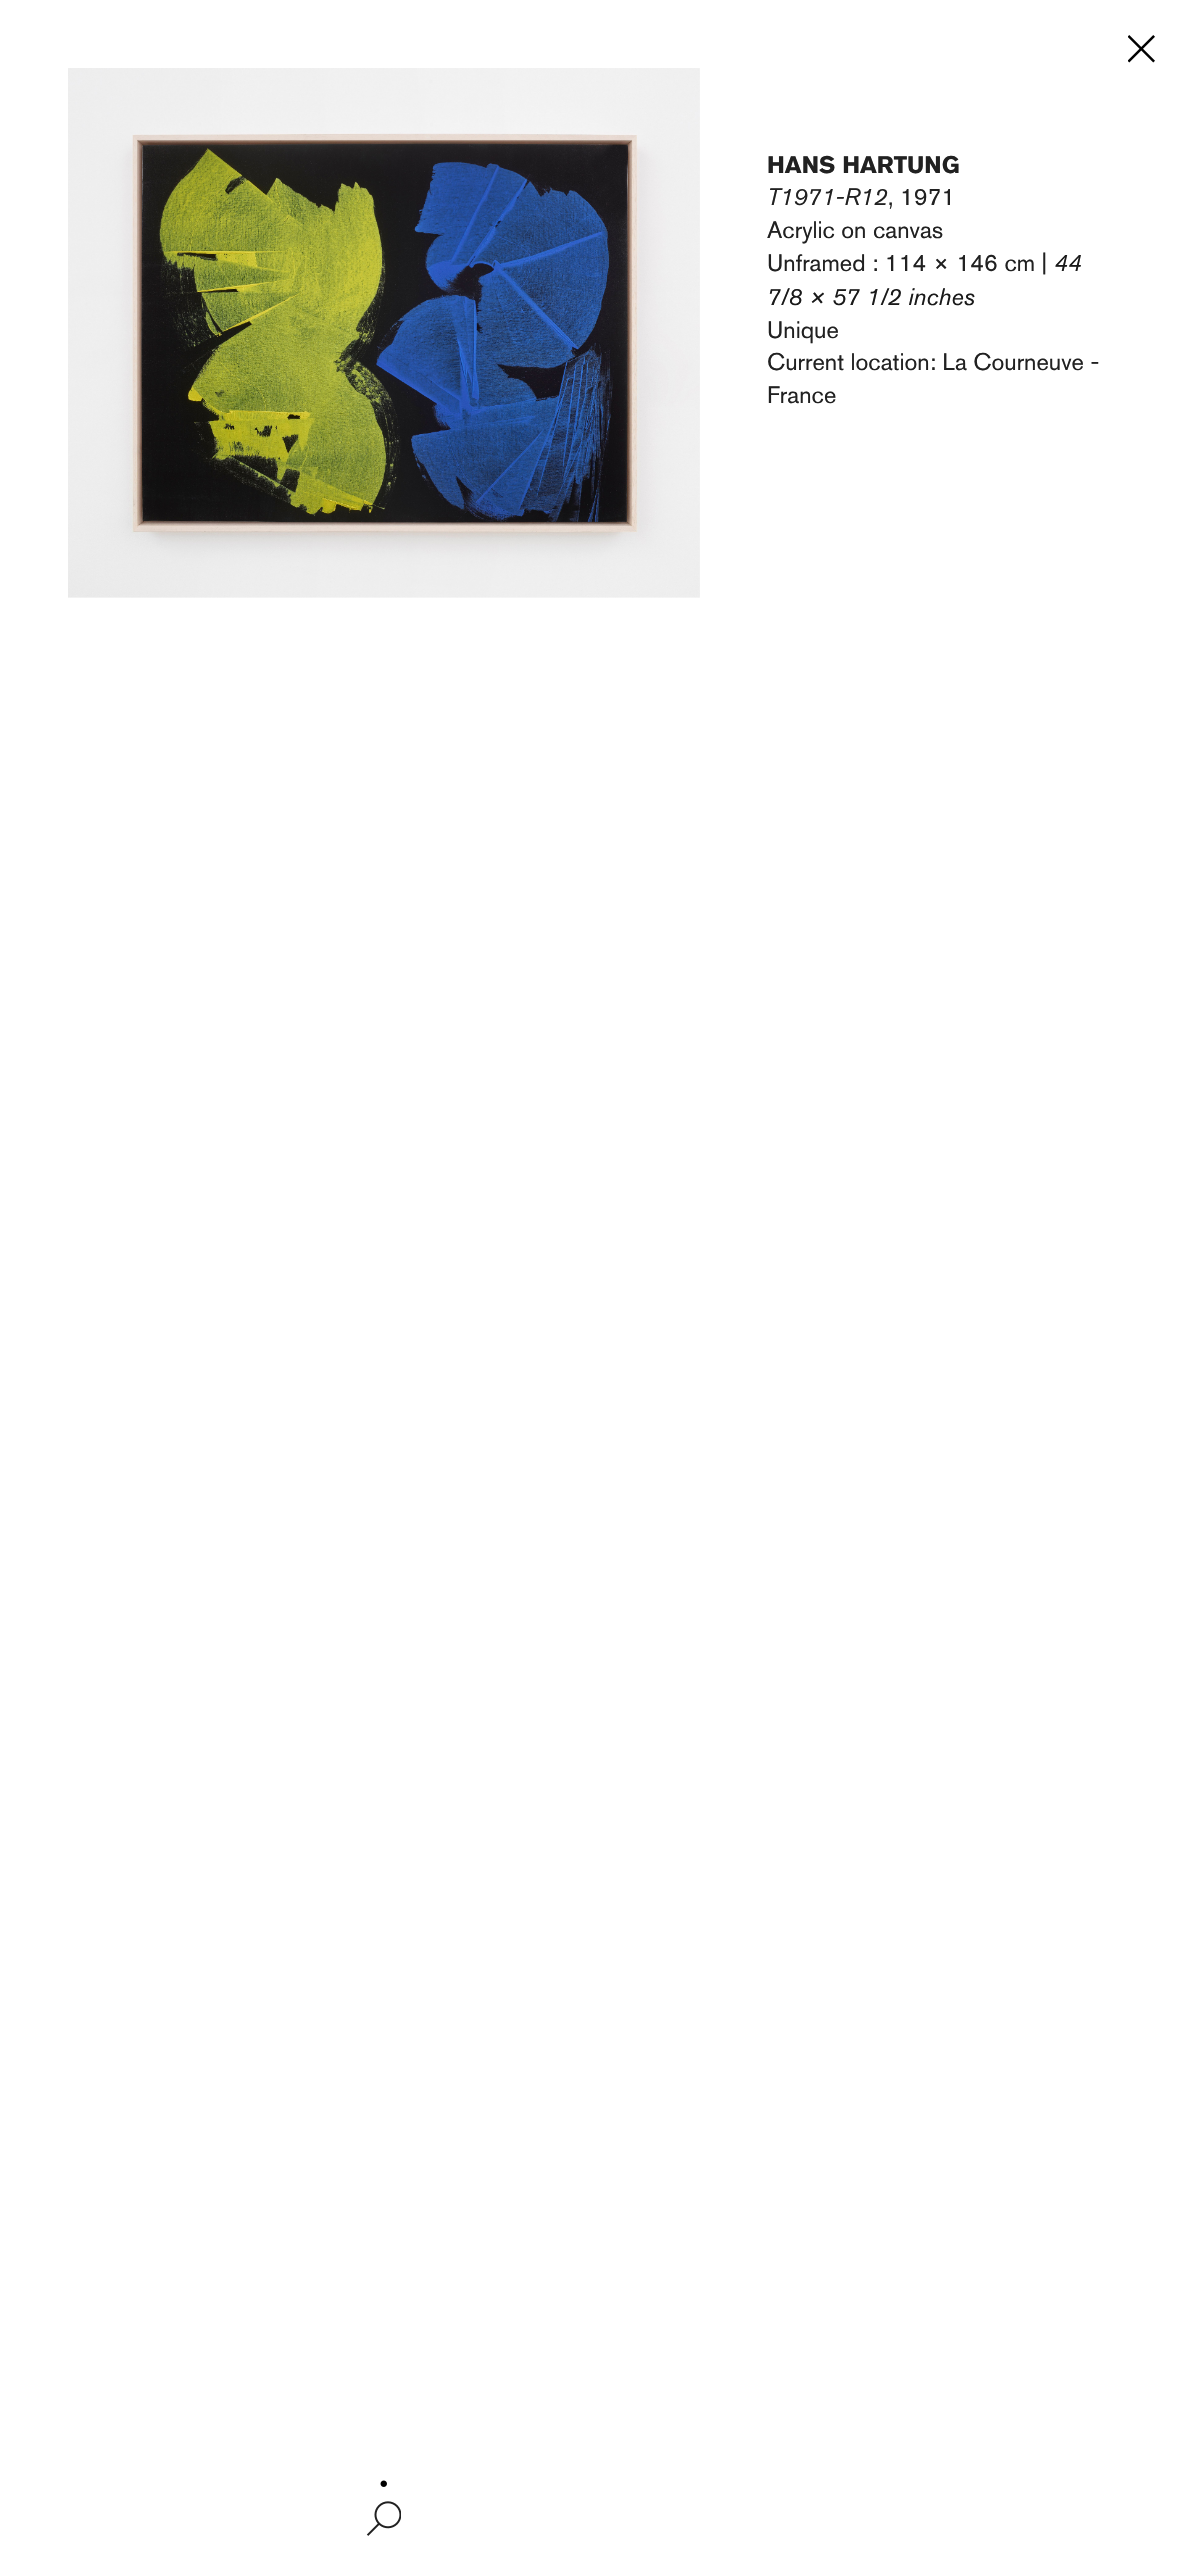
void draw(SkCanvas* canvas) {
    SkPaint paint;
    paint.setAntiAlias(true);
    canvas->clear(0xFFFFFFFF);
    canvas->drawImageRect(SkImages::DeferredFromEncodedData(SkData::MakeFromFileName("img1.png")), SkRect::MakeXYWH(1128, 35, 27, 28), SkSamplingOptions());
    canvas->drawImageRect(SkImages::DeferredFromEncodedData(SkData::MakeFromFileName("img2.png")), SkRect::MakeXYWH(68, 68, 632, 530), SkSamplingOptions());
    canvas->drawImageRect(SkImages::DeferredFromEncodedData(SkData::MakeFromFileName("img3.png")), SkRect::MakeXYWH(380, 2480, 7, 7), SkSamplingOptions());
    canvas->drawImageRect(SkImages::DeferredFromEncodedData(SkData::MakeFromFileName("img4.png")), SkRect::MakeXYWH(366, 2501, 35, 35), SkSamplingOptions());
    SkFont font1(fontMgr->matchFamilyStyle("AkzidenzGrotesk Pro", SkFontStyle::Bold()), 23.75f);
    font1.setSubpixel(true);
    paint.setColor(0xFF212121);
    canvas->drawString("HANS HARTUNG", 767, 173, font1, paint);
    SkFont font2(fontMgr->matchFamilyStyle("AkzidenzGrotesk Pro", SkFontStyle::Italic()), 23.75f);
    font2.setSubpixel(true);
    canvas->drawString("T1971-R12", 767, 205, font2, paint);
    SkFont font3(fontMgr->matchFamilyStyle("AkzidenzGrotesk Pro", SkFontStyle::Normal()), 23.75f);
    font3.setSubpixel(true);
    canvas->drawString(", 1971", 888, 205, font3, paint);
    canvas->drawString("Acrylic on canvas", 767, 238, font3, paint);
    canvas->drawString("Unframed : 114 × 146 cm |", 767, 271, font3, paint);
    paint.setColor(0xFF1A1A1A);
    canvas->drawString("44", 1054, 271, font2, paint);
    canvas->drawString("7/8 × 57 1/2 inches", 767, 305, font2, paint);
    paint.setColor(0xFF212121);
    canvas->drawString("Unique", 767, 338, font3, paint);
    canvas->drawString("Current location: La Courneuve -", 767, 370, font3, paint);
    canvas->drawString("France", 767, 403, font3, paint);
}
